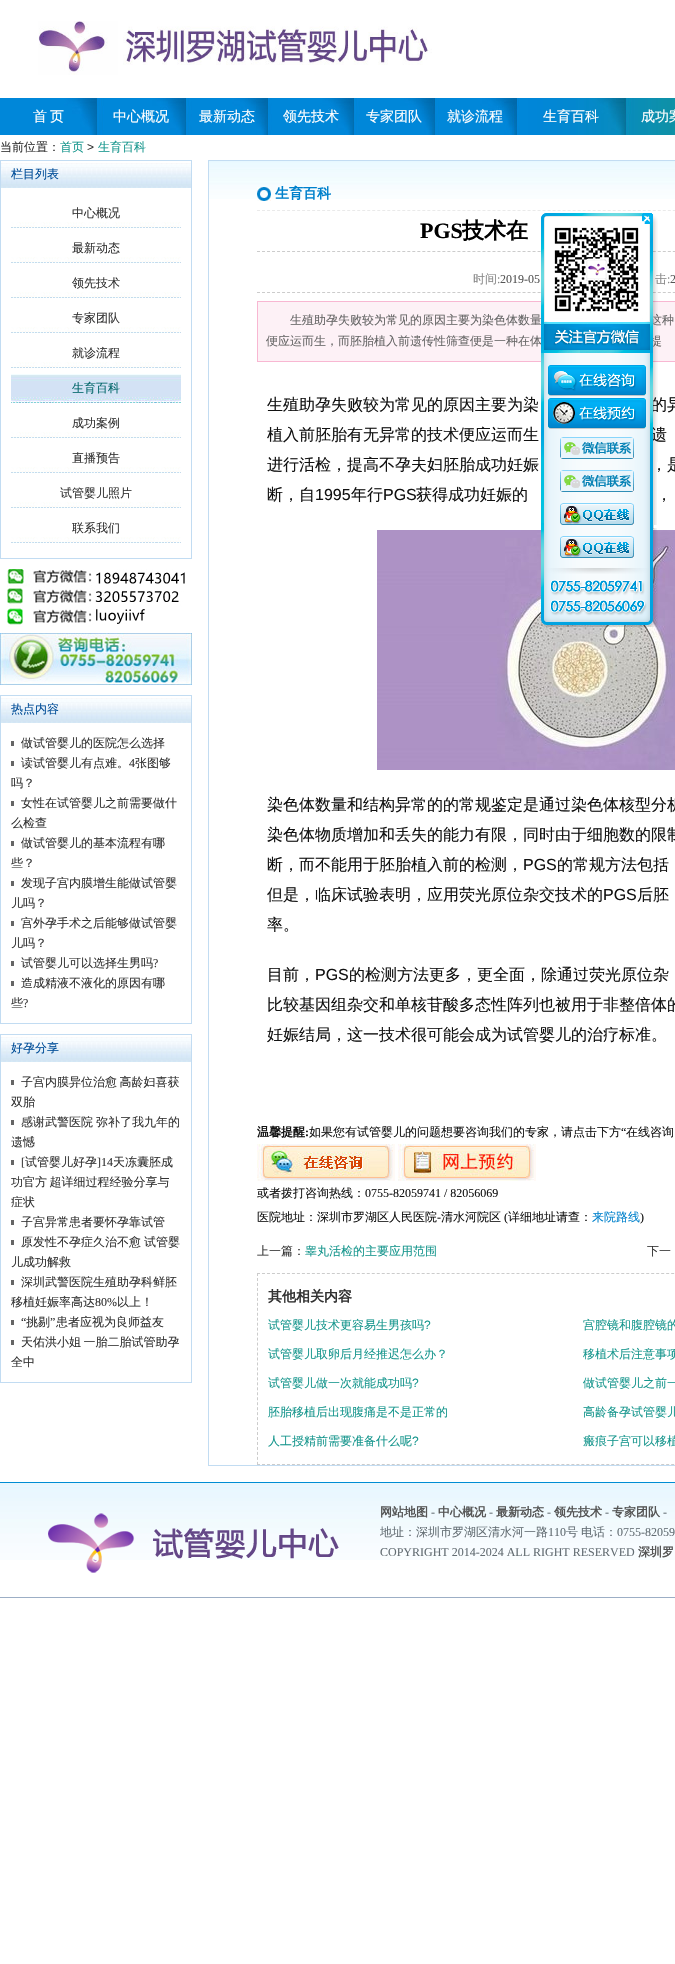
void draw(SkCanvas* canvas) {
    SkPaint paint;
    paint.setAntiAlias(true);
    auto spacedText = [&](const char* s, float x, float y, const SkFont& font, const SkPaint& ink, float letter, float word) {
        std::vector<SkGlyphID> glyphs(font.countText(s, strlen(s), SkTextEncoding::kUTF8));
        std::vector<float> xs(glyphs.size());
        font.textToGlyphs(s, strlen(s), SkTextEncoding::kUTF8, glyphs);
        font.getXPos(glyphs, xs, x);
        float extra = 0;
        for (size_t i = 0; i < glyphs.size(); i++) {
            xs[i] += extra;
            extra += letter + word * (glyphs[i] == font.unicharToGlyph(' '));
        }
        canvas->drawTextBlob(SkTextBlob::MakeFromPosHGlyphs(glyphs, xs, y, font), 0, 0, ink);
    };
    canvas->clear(0xFFFFFFFF);
    canvas->drawImageRect(SkImages::DeferredFromEncodedData(SkData::MakeFromFileName("img1.png")), SkRect::MakeXYWH(38, 21, 394, 54), SkSamplingOptions());
    canvas->drawImageRect(SkImages::DeferredFromEncodedData(SkData::MakeFromFileName("img2.png")), SkRect::MakeXYWH(0, 98, 675, 37), SkSamplingOptions());
    SkFont font1(fontMgr->matchFamilyStyle("WenQuanYi Zen Hei", SkFontStyle(500, SkFontStyle::kNormal_Width, SkFontStyle::kUpright_Slant)), 14);
    font1.setSubpixel(true);
    paint.setColor(0xFFFFFFFF);
    canvas->drawString("首", 33, 121, font1, paint);
    canvas->drawString("页", 50, 121, font1, paint);
    canvas->drawString("中心概况", 113, 121, font1, paint);
    canvas->drawString("最新动态", 199, 121, font1, paint);
    canvas->drawString("领先技术", 283, 121, font1, paint);
    canvas->drawString("专家团队", 366, 121, font1, paint);
    canvas->drawString("就诊流程", 447, 121, font1, paint);
    canvas->drawString("生育百科", 543, 121, font1, paint);
    canvas->drawString("成功案", 641, 121, font1, paint);
    SkFont font2(fontMgr->matchFamilyStyle("WenQuanYi Zen Hei", SkFontStyle(500, SkFontStyle::kNormal_Width, SkFontStyle::kUpright_Slant)), 12);
    font2.setSubpixel(true);
    paint.setColor(0xFF333333);
    canvas->drawString("当前位置：", 0, 151, font2, paint);
    paint.setColor(0xFF16968D);
    canvas->drawString("首页", 60, 151, font2, paint);
    SkFont font3(fontMgr->matchFamilyStyle("Liberation Sans", SkFontStyle::Normal()), 12);
    font3.setSubpixel(true);
    paint.setColor(0xFF333333);
    canvas->drawString(">", 87, 151, font3, paint);
    paint.setColor(0xFF16968D);
    canvas->drawString("生育百科", 98, 151, font2, paint);
    paint.setStyle(SkPaint::kStroke_Style);
    paint.setStrokeWidth(1);
    paint.setColor(0xFFC2DCF2);
    canvas->drawRect(SkRect::MakeXYWH(0.5f, 160.5f, 191, 398), paint);
    canvas->drawImageRect(SkImages::DeferredFromEncodedData(SkData::MakeFromFileName("img3.png")), SkRect::MakeXYWH(1, 163, 190, 25), SkSamplingOptions());
    paint.setStyle(SkPaint::kFill_Style);
    paint.setColor(0xFF004D98);
    canvas->drawString("栏目列表", 11, 178, font2, paint);
    canvas->drawImageRect(SkImages::DeferredFromEncodedData(SkData::MakeFromFileName("img4.png")), SkRect::MakeXYWH(11, 222, 170, 6), SkSamplingOptions());
    paint.setColor(0xFF333333);
    canvas->drawString("中心概况", 72, 217, font2, paint);
    canvas->drawImageRect(SkImages::DeferredFromEncodedData(SkData::MakeFromFileName("img4.png")), SkRect::MakeXYWH(11, 257, 170, 6), SkSamplingOptions());
    canvas->drawString("最新动态", 72, 252, font2, paint);
    canvas->drawImageRect(SkImages::DeferredFromEncodedData(SkData::MakeFromFileName("img4.png")), SkRect::MakeXYWH(11, 292, 170, 6), SkSamplingOptions());
    canvas->drawString("领先技术", 72, 287, font2, paint);
    canvas->drawImageRect(SkImages::DeferredFromEncodedData(SkData::MakeFromFileName("img4.png")), SkRect::MakeXYWH(11, 327, 170, 6), SkSamplingOptions());
    canvas->drawString("专家团队", 72, 322, font2, paint);
    canvas->drawImageRect(SkImages::DeferredFromEncodedData(SkData::MakeFromFileName("img4.png")), SkRect::MakeXYWH(11, 362, 170, 6), SkSamplingOptions());
    canvas->drawString("就诊流程", 72, 357, font2, paint);
    canvas->drawImageRect(SkImages::DeferredFromEncodedData(SkData::MakeFromFileName("img5.png")), SkRect::MakeXYWH(11, 374, 170, 29), SkSamplingOptions());
    paint.setColor(0xFF006769);
    canvas->drawString("生育百科", 72, 392, font2, paint);
    canvas->drawImageRect(SkImages::DeferredFromEncodedData(SkData::MakeFromFileName("img4.png")), SkRect::MakeXYWH(11, 432, 170, 6), SkSamplingOptions());
    paint.setColor(0xFF333333);
    canvas->drawString("成功案例", 72, 427, font2, paint);
    canvas->drawImageRect(SkImages::DeferredFromEncodedData(SkData::MakeFromFileName("img4.png")), SkRect::MakeXYWH(11, 467, 170, 6), SkSamplingOptions());
    canvas->drawString("直播预告", 72, 462, font2, paint);
    canvas->drawImageRect(SkImages::DeferredFromEncodedData(SkData::MakeFromFileName("img4.png")), SkRect::MakeXYWH(11, 502, 170, 6), SkSamplingOptions());
    canvas->drawString("试管婴儿照片", 60, 497, font2, paint);
    canvas->drawImageRect(SkImages::DeferredFromEncodedData(SkData::MakeFromFileName("img4.png")), SkRect::MakeXYWH(11, 537, 170, 6), SkSamplingOptions());
    canvas->drawString("联系我们", 72, 532, font2, paint);
    canvas->drawImageRect(SkImages::DeferredFromEncodedData(SkData::MakeFromFileName("img6.png")), SkRect::MakeXYWH(7, 569, 178, 58), SkSamplingOptions());
    canvas->drawImageRect(SkImages::DeferredFromEncodedData(SkData::MakeFromFileName("img7.png")), SkRect::MakeXYWH(0, 633, 192, 52), SkSamplingOptions());
    paint.setStyle(SkPaint::kStroke_Style);
    paint.setColor(0xFFC2DCF2);
    canvas->drawRect(SkRect::MakeXYWH(0.5f, 695.5f, 191, 328), paint);
    canvas->drawImageRect(SkImages::DeferredFromEncodedData(SkData::MakeFromFileName("img3.png")), SkRect::MakeXYWH(1, 698, 190, 25), SkSamplingOptions());
    paint.setStyle(SkPaint::kFill_Style);
    paint.setColor(0xFF004D98);
    canvas->drawString("热点内容", 11, 713, font2, paint);
    paint.setColor(0xFF333333);
    canvas->drawString("做试管婴儿的医院怎么选择", 21, 747, font2, paint);
    paint.setColor(0xFF656565);
    canvas->drawRect(SkRect::MakeXYWH(11, 741, 3, 5), paint);
    paint.setColor(0xFF333333);
    canvas->drawString("读试管婴儿有点难。", 21, 767, font2, paint);
    paint.setColor(0xFF656565);
    canvas->drawRect(SkRect::MakeXYWH(11, 761, 3, 5), paint);
    SkFont font4(fontMgr->matchFamilyStyle("Liberation Serif", SkFontStyle::Normal()), 12);
    font4.setSubpixel(true);
    paint.setColor(0xFF333333);
    canvas->drawString("4", 129, 767, font4, paint);
    canvas->drawString("张图够", 135, 767, font2, paint);
    canvas->drawString("吗？", 11, 787, font2, paint);
    canvas->drawString("女性在试管婴儿之前需要做什", 21, 807, font2, paint);
    paint.setColor(0xFF656565);
    canvas->drawRect(SkRect::MakeXYWH(11, 801, 3, 5), paint);
    paint.setColor(0xFF333333);
    canvas->drawString("么检查", 11, 827, font2, paint);
    canvas->drawString("做试管婴儿的基本流程有哪", 21, 847, font2, paint);
    paint.setColor(0xFF656565);
    canvas->drawRect(SkRect::MakeXYWH(11, 841, 3, 5), paint);
    paint.setColor(0xFF333333);
    canvas->drawString("些？", 11, 867, font2, paint);
    canvas->drawString("发现子宫内膜增生能做试管婴", 21, 887, font2, paint);
    paint.setColor(0xFF656565);
    canvas->drawRect(SkRect::MakeXYWH(11, 881, 3, 5), paint);
    paint.setColor(0xFF333333);
    canvas->drawString("儿吗？", 11, 907, font2, paint);
    canvas->drawString("宫外孕手术之后能够做试管婴", 21, 927, font2, paint);
    paint.setColor(0xFF656565);
    canvas->drawRect(SkRect::MakeXYWH(11, 921, 3, 5), paint);
    paint.setColor(0xFF333333);
    canvas->drawString("儿吗？", 11, 947, font2, paint);
    canvas->drawString("试管婴儿可以选择生男吗", 21, 967, font2, paint);
    paint.setColor(0xFF656565);
    canvas->drawRect(SkRect::MakeXYWH(11, 961, 3, 5), paint);
    paint.setColor(0xFF333333);
    canvas->drawString("?", 153, 967, font4, paint);
    canvas->drawString("造成精液不液化的原因有哪", 21, 987, font2, paint);
    paint.setColor(0xFF656565);
    canvas->drawRect(SkRect::MakeXYWH(11, 981, 3, 5), paint);
    paint.setColor(0xFF333333);
    canvas->drawString("些", 11, 1007, font2, paint);
    canvas->drawString("?", 23, 1007, font4, paint);
    paint.setStyle(SkPaint::kStroke_Style);
    paint.setColor(0xFFC2DCF2);
    canvas->drawRect(SkRect::MakeXYWH(0.5f, 1034.5f, 191, 348), paint);
    canvas->drawImageRect(SkImages::DeferredFromEncodedData(SkData::MakeFromFileName("img3.png")), SkRect::MakeXYWH(1, 1037, 190, 25), SkSamplingOptions());
    paint.setStyle(SkPaint::kFill_Style);
    paint.setColor(0xFF004D98);
    canvas->drawString("好孕分享", 11, 1052, font2, paint);
    paint.setColor(0xFF333333);
    spacedText("子宫内膜异位治愈 高龄妇喜获", 21, 1086, font2, paint, 0, -1);
    paint.setColor(0xFF656565);
    canvas->drawRect(SkRect::MakeXYWH(11, 1080, 3, 5), paint);
    paint.setColor(0xFF333333);
    canvas->drawString("双胎", 11, 1106, font2, paint);
    canvas->drawString("感谢武警医院", 21, 1126, font2, paint);
    paint.setColor(0xFF656565);
    canvas->drawRect(SkRect::MakeXYWH(11, 1120, 3, 5), paint);
    paint.setColor(0xFF333333);
    canvas->drawString("弥补了我九年的", 96, 1126, font2, paint);
    canvas->drawString("遗憾", 11, 1146, font2, paint);
    canvas->drawString("[", 21, 1166, font4, paint);
    paint.setColor(0xFF656565);
    canvas->drawRect(SkRect::MakeXYWH(11, 1160, 3, 5), paint);
    paint.setColor(0xFF333333);
    canvas->drawString("试管婴儿好孕", 25, 1166, font2, paint);
    canvas->drawString("]14", 97, 1166, font4, paint);
    canvas->drawString("天冻囊胚成", 113, 1166, font2, paint);
    spacedText("功官方 超详细过程经验分享与", 11, 1186, font2, paint, 0, -1);
    canvas->drawString("症状", 11, 1206, font2, paint);
    canvas->drawString("子宫异常患者要怀孕靠试管", 21, 1226, font2, paint);
    paint.setColor(0xFF656565);
    canvas->drawRect(SkRect::MakeXYWH(11, 1220, 3, 5), paint);
    paint.setColor(0xFF333333);
    canvas->drawString("原发性不孕症久治不愈", 21, 1246, font2, paint);
    paint.setColor(0xFF656565);
    canvas->drawRect(SkRect::MakeXYWH(11, 1240, 3, 5), paint);
    paint.setColor(0xFF333333);
    canvas->drawString("试管婴", 144, 1246, font2, paint);
    canvas->drawString("儿成功解救", 11, 1266, font2, paint);
    canvas->drawString("深圳武警医院生殖助孕科鲜胚", 21, 1286, font2, paint);
    paint.setColor(0xFF656565);
    canvas->drawRect(SkRect::MakeXYWH(11, 1280, 3, 5), paint);
    paint.setColor(0xFF333333);
    canvas->drawString("移植妊娠率高达", 11, 1306, font2, paint);
    canvas->drawString("80%", 95, 1306, font4, paint);
    canvas->drawString("以上！", 117, 1306, font2, paint);
    canvas->drawString("“", 21, 1326, font4, paint);
    paint.setColor(0xFF656565);
    canvas->drawRect(SkRect::MakeXYWH(11, 1320, 3, 5), paint);
    paint.setColor(0xFF333333);
    canvas->drawString("挑剔", 26, 1326, font2, paint);
    canvas->drawString("”", 50, 1326, font4, paint);
    canvas->drawString("患者应视为良师益友", 56, 1326, font2, paint);
    spacedText("天佑洪小姐 一胎二胎试管助孕", 21, 1346, font2, paint, 0, -1);
    paint.setColor(0xFF656565);
    canvas->drawRect(SkRect::MakeXYWH(11, 1340, 3, 5), paint);
    paint.setColor(0xFF333333);
    canvas->drawString("全中", 11, 1366, font2, paint);
    canvas->drawImageRect(SkImages::DeferredFromEncodedData(SkData::MakeFromFileName("img8.png")), SkRect::MakeXYWH(209, 161, 466, 38), SkSamplingOptions());
    paint.setStyle(SkPaint::kStroke_Style);
    paint.setColor(0xFFC2DCF2);
    canvas->drawRect(SkRect::MakeXYWH(208.5f, 160.5f, 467, 1305), paint);
    canvas->drawImageRect(SkImages::DeferredFromEncodedData(SkData::MakeFromFileName("img9.png")), SkRect::MakeXYWH(257, 187, 14, 14), SkSamplingOptions());
    paint.setColor(0xFFEAEAEA);
    paint.setPathEffect(SkDashPathEffect::Make({{3, 2.01f}}, 0));
    canvas->drawPath(SkPathBuilder().moveTo(257, 210.5f).lineTo(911, 210.5f).detach(), paint);
    paint.setPathEffect(nullptr);
    SkFont font5(fontMgr->matchFamilyStyle("WenQuanYi Zen Hei", SkFontStyle::Bold()), 14);
    font5.setSubpixel(true);
    paint.setStyle(SkPaint::kFill_Style);
    paint.setColor(0xFF0081CC);
    canvas->drawString("生育百科", 275, 198, font5, paint);
    SkFont font6(fontMgr->matchFamilyStyle("Liberation Serif", SkFontStyle::Bold()), 22);
    font6.setSubpixel(true);
    paint.setColor(0xFF000000);
    canvas->drawString("PGS", 420, 238, font6, paint);
    SkFont font7(fontMgr->matchFamilyStyle("WenQuanYi Zen Hei", SkFontStyle::Bold()), 22);
    font7.setSubpixel(true);
    canvas->drawString("技术在", 462, 238, font7, paint);
    paint.setStyle(SkPaint::kStroke_Style);
    paint.setColor(0xFFCCCCCC);
    paint.setPathEffect(SkDashPathEffect::Make({{3, 2.01f}}, 0));
    canvas->drawPath(SkPathBuilder().moveTo(257, 251.5f).lineTo(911, 251.5f).detach(), paint);
    paint.setPathEffect(nullptr);
    paint.setPathEffect(SkDashPathEffect::Make({{3, 2.01f}}, 0));
    canvas->drawPath(SkPathBuilder().moveTo(257, 292.5f).lineTo(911, 292.5f).detach(), paint);
    paint.setPathEffect(nullptr);
    paint.setStyle(SkPaint::kFill_Style);
    paint.setColor(0xFF888888);
    canvas->drawString("时间", 473, 283, font2, paint);
    canvas->drawString(":", 497, 283, font4, paint);
    paint.setColor(0xFF555555);
    canvas->drawString("2019-05", 500, 283, font4, paint);
    paint.setColor(0xFF888888);
    canvas->drawString("击", 655, 283, font2, paint);
    canvas->drawString(":", 667, 283, font4, paint);
    paint.setColor(0xFF555555);
    canvas->drawString("2", 670, 283, font4, paint);
    paint.setColor(0xFFFDF1F6);
    canvas->drawRect(SkRect::MakeXYWH(257.5f, 301.5f, 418, 60), paint);
    paint.setStyle(SkPaint::kStroke_Style);
    paint.setColor(0xFFF8B7D2);
    canvas->drawRect(SkRect::MakeXYWH(257.5f, 301.5f, 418, 60), paint);
    paint.setStyle(SkPaint::kFill_Style);
    paint.setColor(0xFF666666);
    canvas->drawString("生殖助孕失败较为常见的原因主要为染色体数量", 290, 324, font2, paint);
    canvas->drawString("这种", 650, 324, font2, paint);
    canvas->drawString("便应运而生，而胚胎植入前遗传性筛查便是一种在体", 266, 345, font2, paint);
    canvas->drawString("提", 650, 345, font2, paint);
    SkFont font8(fontMgr->matchFamilyStyle("WenQuanYi Zen Hei", SkFontStyle(500, SkFontStyle::kNormal_Width, SkFontStyle::kUpright_Slant)), 16);
    font8.setSubpixel(true);
    paint.setColor(0xFF121212);
    canvas->drawString("生殖助孕失败较为常见的原因主要为染", 267, 410, font8, paint);
    canvas->drawString("的异", 651, 410, font8, paint);
    canvas->drawString("植入前胚胎有无异常的技术便应运而生", 267, 440, font8, paint);
    canvas->drawString("遗", 651, 440, font8, paint);
    canvas->drawString("进行活检，提高不孕夫妇胚胎成功妊娠", 267, 470, font8, paint);
    canvas->drawString("，是", 651, 470, font8, paint);
    canvas->drawString("断，自", 267, 500, font8, paint);
    SkFont font9(fontMgr->matchFamilyStyle("Liberation Sans", SkFontStyle::Normal()), 16);
    font9.setSubpixel(true);
    canvas->drawString("1995", 315, 500, font9, paint);
    canvas->drawString("年行", 351, 500, font8, paint);
    canvas->drawString("PGS", 383, 500, font9, paint);
    canvas->drawString("获得成功妊娠的", 416, 500, font8, paint);
    canvas->drawString("，", 656, 500, font8, paint);
    canvas->drawImageRect(SkImages::DeferredFromEncodedData(SkData::MakeFromFileName("img10.png")), SkRect::MakeXYWH(377, 530, 298, 240), SkSamplingOptions());
    canvas->drawString("染色体数量和结构异常的的常规鉴定是通过染色体核型分析", 267, 810, font8, paint);
    canvas->drawString("染色体物质增加和丢失的能力有限，同时由于细胞数的限制", 267, 840, font8, paint);
    canvas->drawString("断，而不能用于胚胎植入前的检测，", 267, 870, font8, paint);
    canvas->drawString("PGS", 523, 870, font9, paint);
    canvas->drawString("的常规方法包括", 557, 870, font8, paint);
    canvas->drawString("但是，临床试验表明，应用荧光原位杂交技术的", 267, 900, font8, paint);
    canvas->drawString("PGS", 603, 900, font9, paint);
    canvas->drawString("后胚", 637, 900, font8, paint);
    canvas->drawString("率。", 267, 930, font8, paint);
    canvas->drawString("目前，", 267, 980, font8, paint);
    canvas->drawString("PGS", 315, 980, font9, paint);
    canvas->drawString("的检测方法更多，更全面，除通过荧光原位杂", 349, 980, font8, paint);
    canvas->drawString("比较基因组杂交和单核苷酸多态性阵列也被用于非整倍体的", 267, 1010, font8, paint);
    canvas->drawString("妊娠结局，这一技术很可能会成为试管婴儿的治疗标准。", 267, 1040, font8, paint);
    SkFont font10(fontMgr->matchFamilyStyle("WenQuanYi Zen Hei", SkFontStyle::Bold()), 12);
    font10.setSubpixel(true);
    canvas->drawString("温馨提醒", 257, 1136, font10, paint);
    SkFont font11(fontMgr->matchFamilyStyle("Liberation Serif", SkFontStyle::Bold()), 12);
    font11.setSubpixel(true);
    canvas->drawString(":", 305, 1136, font11, paint);
    canvas->drawString("如果您有试管婴儿的问题想要咨询我们的专家，请点击下方", 309, 1136, font2, paint);
    canvas->drawString("“", 621, 1136, font4, paint);
    canvas->drawString("在线咨询", 626, 1136, font2, paint);
    canvas->drawImageRect(SkImages::DeferredFromEncodedData(SkData::MakeFromFileName("img11.png")), SkRect::MakeXYWH(257, 1144, 138, 37), SkSamplingOptions());
    canvas->drawImageRect(SkImages::DeferredFromEncodedData(SkData::MakeFromFileName("img12.png")), SkRect::MakeXYWH(398, 1144, 138, 37), SkSamplingOptions());
    canvas->drawString("或者拨打咨询热线：", 257, 1197, font2, paint);
    canvas->drawString("0755-82059741 / 82056069", 365, 1197, font4, paint);
    canvas->drawString("医院地址：深圳市罗湖区人民医院", 257, 1221, font2, paint);
    canvas->drawString("-", 437, 1221, font4, paint);
    canvas->drawString("清水河院区", 441, 1221, font2, paint);
    canvas->drawString("(", 504, 1221, font4, paint);
    canvas->drawString("详细地址请查：", 508, 1221, font2, paint);
    paint.setColor(0xFF0081CC);
    canvas->drawString("来院路线", 592, 1221, font2, paint);
    paint.setColor(0xFF121212);
    canvas->drawString(")", 640, 1221, font4, paint);
    paint.setColor(0xFF333333);
    canvas->drawString("上一篇：", 257, 1255, font2, paint);
    paint.setColor(0xFF16968D);
    canvas->drawString("睾丸活检的主要应用范围", 305, 1255, font2, paint);
    paint.setColor(0xFF333333);
    canvas->drawString("下一", 647, 1255, font2, paint);
    paint.setStyle(SkPaint::kStroke_Style);
    paint.setColor(0xFFCCCCCC);
    paint.setPathEffect(SkDashPathEffect::Make({{3, 1.99f}}, 0));
    canvas->drawPath(SkPathBuilder().moveTo(257, 1273.5f).lineTo(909, 1273.5f).detach(), paint);
    paint.setPathEffect(nullptr);
    paint.setPathEffect(SkDashPathEffect::Make({{3, 1.99f}}, 0));
    canvas->drawPath(SkPathBuilder().moveTo(257, 1464.5f).lineTo(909, 1464.5f).detach(), paint);
    paint.setPathEffect(nullptr);
    paint.setPathEffect(SkDashPathEffect::Make({{3, 1.97f}}, 0));
    canvas->drawPath(SkPathBuilder().moveTo(257.5f, 1273).lineTo(257.5f, 1465).detach(), paint);
    paint.setPathEffect(nullptr);
    paint.setStyle(SkPaint::kFill_Style);
    paint.setColor(0xFF333333);
    canvas->drawString("其他相关内容", 268, 1301, font5, paint);
    paint.setColor(0xFF16968D);
    canvas->drawString("试管婴儿技术更容易生男孩吗", 268, 1329, font2, paint);
    canvas->drawString("?", 424, 1329, font3, paint);
    canvas->drawString("宫腔镜和腹腔镜的", 583, 1329, font2, paint);
    canvas->drawString("试管婴儿取卵后月经推迟怎么办？", 268, 1358, font2, paint);
    canvas->drawString("移植术后注意事项", 583, 1358, font2, paint);
    canvas->drawString("试管婴儿做一次就能成功吗", 268, 1387, font2, paint);
    canvas->drawString("?", 412, 1387, font3, paint);
    canvas->drawString("做试管婴儿之前一", 583, 1387, font2, paint);
    canvas->drawString("胚胎移植后出现腹痛是不是正常的", 268, 1416, font2, paint);
    canvas->drawString("高龄备孕试管婴儿", 583, 1416, font2, paint);
    canvas->drawString("人工授精前需要准备什么呢", 268, 1445, font2, paint);
    canvas->drawString("?", 412, 1445, font3, paint);
    canvas->drawString("瘢痕子宫可以移植", 583, 1445, font2, paint);
    canvas->drawImageRect(SkImages::DeferredFromEncodedData(SkData::MakeFromFileName("img13.png")), SkRect::MakeXYWH(541, 213, 117, 414), SkSamplingOptions());
    canvas->drawImageRect(SkImages::DeferredFromEncodedData(SkData::MakeFromFileName("img14.png")), SkRect::MakeXYWH(0, 1482, 675, 78), SkSamplingOptions());
    paint.setColor(0xFF9CAEC5);
    canvas->drawRect(SkRect::MakeXYWH(0, 1597, 675, 1), paint);
    canvas->drawImageRect(SkImages::DeferredFromEncodedData(SkData::MakeFromFileName("img15.png")), SkRect::MakeXYWH(48, 1513, 291, 60), SkSamplingOptions());
    paint.setColor(0xFF555555);
    canvas->drawString("网站地图", 380, 1516, font10, paint);
    paint.setColor(0xFF636D73);
    canvas->drawString("-", 431, 1516, font4, paint);
    paint.setColor(0xFF555555);
    canvas->drawString("中心概况", 438, 1516, font10, paint);
    paint.setColor(0xFF636D73);
    canvas->drawString("-", 489, 1516, font4, paint);
    paint.setColor(0xFF555555);
    canvas->drawString("最新动态", 496, 1516, font10, paint);
    paint.setColor(0xFF636D73);
    canvas->drawString("-", 547, 1516, font4, paint);
    paint.setColor(0xFF555555);
    canvas->drawString("领先技术", 554, 1516, font10, paint);
    paint.setColor(0xFF636D73);
    canvas->drawString("-", 605, 1516, font4, paint);
    paint.setColor(0xFF555555);
    canvas->drawString("专家团队", 612, 1516, font10, paint);
    paint.setColor(0xFF636D73);
    canvas->drawString("-", 663, 1516, font4, paint);
    canvas->drawString("地址：深圳市罗湖区清水河一路", 380, 1536, font2, paint);
    canvas->drawString("110", 548, 1536, font4, paint);
    canvas->drawString("号", 566, 1536, font2, paint);
    canvas->drawString("电话：", 581, 1536, font2, paint);
    canvas->drawString("0755-82059", 617, 1536, font4, paint);
    canvas->drawString("COPYRIGHT 2014-2024 ALL RIGHT RESERVED", 380, 1556, font4, paint);
    paint.setColor(0xFF555555);
    canvas->drawString("深圳罗", 638, 1556, font10, paint);
}
